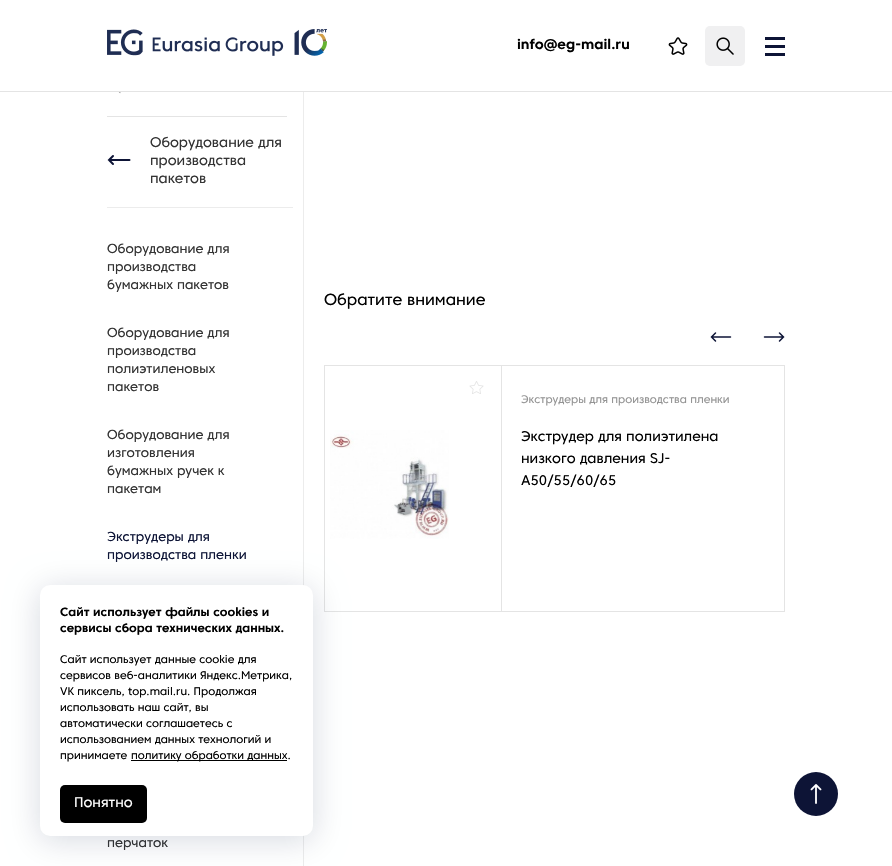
void draw(SkCanvas* canvas) {
    SkPaint paint;
    paint.setAntiAlias(true);
    canvas->clear(0xFFFFFFFF);
    paint.setColor(0xFFE4E4E4);
    canvas->drawRect(SkRect::MakeXYWH(0, 91, 892, 1), paint);
    canvas->drawImageRect(SkImages::DeferredFromEncodedData(SkData::MakeFromFileName("img1.png")), SkRect::MakeXYWH(107, 29, 220, 27), SkSamplingOptions());
    SkFont font1(fontMgr->matchFamilyStyle("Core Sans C", SkFontStyle::Bold()), 14);
    font1.setSubpixel(true);
    paint.setColor(0xFF000000);
    canvas->drawString("info@eg-mail.ru", 517, 49, font1, paint);
    canvas->drawImageRect(SkImages::DeferredFromEncodedData(SkData::MakeFromFileName("img2.png")), SkRect::MakeXYWH(668, 37, 20, 18), SkSamplingOptions());
    paint.setColor(0xFFF0F0F1);
    canvas->drawRoundRect(SkRect::MakeXYWH(705, 26, 40, 40), 5, 5, paint);
    canvas->drawImageRect(SkImages::DeferredFromEncodedData(SkData::MakeFromFileName("img3.png")), SkRect::MakeXYWH(716, 37, 18, 18), SkSamplingOptions());
    paint.setColor(0xFF0D1436);
    canvas->drawRect(SkRect::MakeXYWH(765, 37, 20, 3), paint);
    canvas->drawRect(SkRect::MakeXYWH(765, 45, 20, 3), paint);
    canvas->drawRect(SkRect::MakeXYWH(765, 53, 20, 3), paint);
    paint.setColor(0xFFECECEC);
    canvas->drawRect(SkRect::MakeXYWH(303, 92, 1, 774), paint);
    canvas->drawImageRect(SkImages::DeferredFromEncodedData(SkData::MakeFromFileName("img4.png")), SkRect::MakeXYWH(118, 92, 3, 2), SkSamplingOptions());
    paint.setColor(0xFFE4E4E4);
    canvas->drawRect(SkRect::MakeXYWH(107, 116, 180, 1), paint);
    paint.setColor(0xFFECECEC);
    canvas->drawRect(SkRect::MakeXYWH(107, 207, 186, 1), paint);
    paint.setStyle(SkPaint::kStroke_Style);
    paint.setStrokeWidth(2);
    paint.setStrokeCap(SkPaint::kRound_Cap);
    paint.setColor(0xFF0D1436);
    canvas->drawPath(SkPathBuilder().moveTo(113, 156).lineTo(109, 160).lineTo(113, 164).moveTo(129.5f, 160).lineTo(109, 160).detach(), paint);
    SkFont font2(fontMgr->matchFamilyStyle("Core Sans C", SkFontStyle::Normal()), 14);
    font2.setSubpixel(true);
    paint.setStyle(SkPaint::kFill_Style);
    paint.setColor(0xFF333333);
    canvas->drawString("Оборудование для", 150, 147, font2, paint);
    canvas->drawString("производства", 150, 165, font2, paint);
    canvas->drawString("пакетов", 150, 183, font2, paint);
    SkFont font3(fontMgr->matchFamilyStyle("Core Sans C", SkFontStyle::Normal()), 13);
    font3.setSubpixel(true);
    canvas->drawString("Оборудование для", 107, 253, font3, paint);
    canvas->drawString("производства", 107, 271, font3, paint);
    canvas->drawString("бумажных пакетов", 107, 289, font3, paint);
    canvas->drawString("Оборудование для", 107, 337, font3, paint);
    canvas->drawString("производства", 107, 355, font3, paint);
    canvas->drawString("полиэтиленовых", 107, 373, font3, paint);
    canvas->drawString("пакетов", 107, 391, font3, paint);
    canvas->drawString("Оборудование для", 107, 439, font3, paint);
    canvas->drawString("изготовления", 107, 457, font3, paint);
    canvas->drawString("бумажных ручек к", 107, 475, font3, paint);
    canvas->drawString("пакетам", 107, 493, font3, paint);
    paint.setColor(0xFF0D1436);
    canvas->drawString("Экструдеры для", 107, 541, font3, paint);
    canvas->drawString("производства пленки", 107, 559, font3, paint);
    paint.setColor(0xFF333333);
    canvas->drawString("перчаток", 107, 847, font3, paint);
    SkFont font4(fontMgr->matchFamilyStyle("Core Sans C", SkFontStyle::Normal()), 16);
    font4.setSubpixel(true);
    paint.setColor(0xFF000000);
    canvas->drawString("Обратите внимание", 324, 305, font4, paint);
    paint.setStyle(SkPaint::kStroke_Style);
    paint.setStrokeWidth(1.5f);
    paint.setColor(0xFF0D1436);
    canvas->drawPath(SkPathBuilder().moveTo(715.5f, 341).lineTo(711.5f, 337).lineTo(715.5f, 333).moveTo(730.5f, 337).lineTo(711.5f, 337).detach(), paint);
    canvas->drawPath(SkPathBuilder().moveTo(779.5f, 341).lineTo(783.5f, 337).lineTo(779.5f, 333).moveTo(764.5f, 337).lineTo(783.5f, 337).detach(), paint);
    paint.setStrokeWidth(1);
    paint.setStrokeCap(SkPaint::kButt_Cap);
    paint.setColor(0xFFE4E4E4);
    canvas->drawRect(SkRect::MakeXYWH(324.5f, 365.5f, 460, 246), paint);
    paint.setStyle(SkPaint::kFill_Style);
    canvas->drawRect(SkRect::MakeXYWH(501, 366, 1, 245), paint);
    canvas->drawImageRect(SkImages::DeferredFromEncodedData(SkData::MakeFromFileName("img5.png")), SkRect::MakeXYWH(469, 381, 15, 13), SkSamplingOptions());
    canvas->drawImageRect(SkImages::DeferredFromEncodedData(SkData::MakeFromFileName("img6.png")), SkRect::MakeXYWH(330, 430, 119, 109), SkSamplingOptions());
    SkFont font5(fontMgr->matchFamilyStyle("Core Sans C", SkFontStyle::Normal()), 11);
    font5.setSubpixel(true);
    paint.setColor(0xFF939393);
    canvas->drawString("Экструдеры для производства пленки", 521, 403, font5, paint);
    paint.setColor(0xFF000000);
    canvas->drawString("Экструдер для полиэтилена", 521, 441, font2, paint);
    canvas->drawString("низкого давления SJ-", 521, 463, font2, paint);
    canvas->drawString("A50/55/60/65", 521, 485, font2, paint);
    paint.setColor(0x2900103D);
    paint.setMaskFilter(SkMaskFilter::MakeBlur(kNormal_SkBlurStyle, 16));
    canvas->drawRoundRect(SkRect::MakeXYWH(40, 589, 273, 251), 10, 10, paint);
    paint.setMaskFilter(nullptr);
    paint.setColor(0xFFFFFFFF);
    canvas->drawRoundRect(SkRect::MakeXYWH(40, 585, 273, 251), 10, 10, paint);
    SkFont font6(fontMgr->matchFamilyStyle("Core Sans C", SkFontStyle::Bold()), 12);
    font6.setSubpixel(true);
    paint.setColor(0xFF000000);
    canvas->drawString("Сайт использует файлы cookies и", 60, 616, font6, paint);
    canvas->drawString("сервисы сбора технических данных.", 60, 632, font6, paint);
    canvas->drawString("Сайт использует данные cookie для", 60, 663, font5, paint);
    canvas->drawString("сервисов веб-аналитики Яндекс.Метрика,", 60, 679, font5, paint);
    canvas->drawString("VK пиксель, top.mail.ru. Продолжая", 60, 695, font5, paint);
    canvas->drawString("использовать наш сайт, вы", 60, 711, font5, paint);
    canvas->drawString("автоматически соглашаетесь с", 60, 727, font5, paint);
    canvas->drawString("использованием данных технологий и", 60, 743, font5, paint);
    canvas->drawString("принимаете", 60, 759, font5, paint);
    canvas->drawRect(SkRect::MakeXYWH(131, 760, 156, 1), paint);
    canvas->drawString("политику обработки данных.", 131, 759, font5, paint);
    canvas->drawRoundRect(SkRect::MakeXYWH(60, 785, 87, 38), 5, 5, paint);
    paint.setColor(0xFFFFFFFF);
    canvas->drawString("Понятно", 74, 807, font2, paint);
    paint.setColor(0xFF0D1436);
    canvas->drawCircle(816, 794, 22, paint);
    canvas->drawImageRect(SkImages::DeferredFromEncodedData(SkData::MakeFromFileName("img7.png")), SkRect::MakeXYWH(810, 784, 12, 20), SkSamplingOptions());
}
